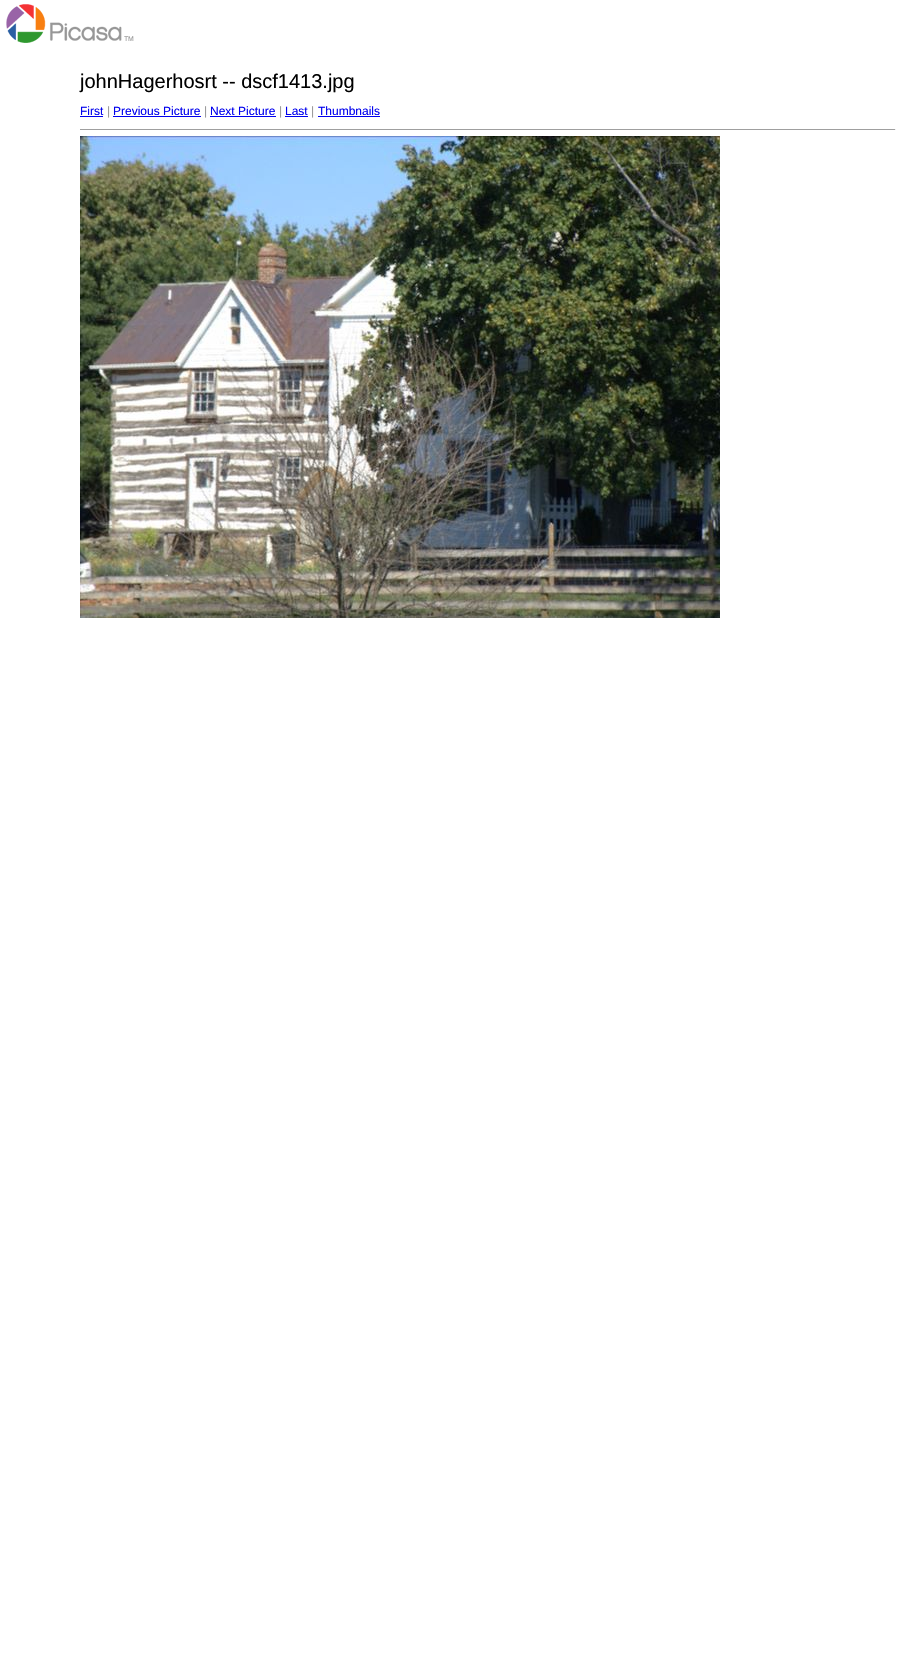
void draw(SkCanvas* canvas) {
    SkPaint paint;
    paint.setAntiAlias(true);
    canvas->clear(0xFFFFFFFF);
    canvas->drawImageRect(SkImages::DeferredFromEncodedData(SkData::MakeFromFileName("img1.png")), SkRect::MakeXYWH(6, 4, 128, 39), SkSamplingOptions());
    SkFont font1(fontMgr->matchFamilyStyle("Liberation Sans", SkFontStyle::Normal()), 20);
    font1.setSubpixel(true);
    paint.setColor(0xFF000000);
    canvas->drawString("johnHagerhosrt -- dscf1413.jpg", 80, 88, font1, paint);
    SkFont font2(fontMgr->matchFamilyStyle("Liberation Sans", SkFontStyle::Normal()), 12);
    font2.setSubpixel(true);
    paint.setColor(0xFF0000EE);
    canvas->drawString("First", 80, 115, font2, paint);
    canvas->drawRect(SkRect::MakeXYWH(80, 116, 23, 1), paint);
    paint.setColor(0xFF979797);
    canvas->drawString("|", 107, 115, font2, paint);
    paint.setColor(0xFF0000EE);
    canvas->drawString("Previous Picture", 113, 115, font2, paint);
    canvas->drawRect(SkRect::MakeXYWH(113, 116, 88, 1), paint);
    paint.setColor(0xFF979797);
    canvas->drawString("|", 204, 115, font2, paint);
    paint.setColor(0xFF0000EE);
    canvas->drawString("Next Picture", 210, 115, font2, paint);
    canvas->drawRect(SkRect::MakeXYWH(210, 116, 66, 1), paint);
    paint.setColor(0xFF979797);
    canvas->drawString("|", 279, 115, font2, paint);
    paint.setColor(0xFF0000EE);
    canvas->drawString("Last", 285, 115, font2, paint);
    canvas->drawRect(SkRect::MakeXYWH(285, 116, 23, 1), paint);
    paint.setColor(0xFF979797);
    canvas->drawString("|", 311, 115, font2, paint);
    paint.setColor(0xFF0000EE);
    canvas->drawString("Thumbnails", 318, 115, font2, paint);
    canvas->drawRect(SkRect::MakeXYWH(318, 116, 62, 1), paint);
    paint.setColor(0xFF9F9F9F);
    canvas->drawRect(SkRect::MakeXYWH(80, 129, 816, 1), paint);
    paint.setColor(0xFFEEEEEE);
    canvas->drawRect(SkRect::MakeXYWH(895, 129, 1, 1), paint);
    canvas->drawImageRect(SkImages::DeferredFromEncodedData(SkData::MakeFromFileName("img2.png")), SkRect::MakeXYWH(80, 136, 640, 482), SkSamplingOptions());
}
